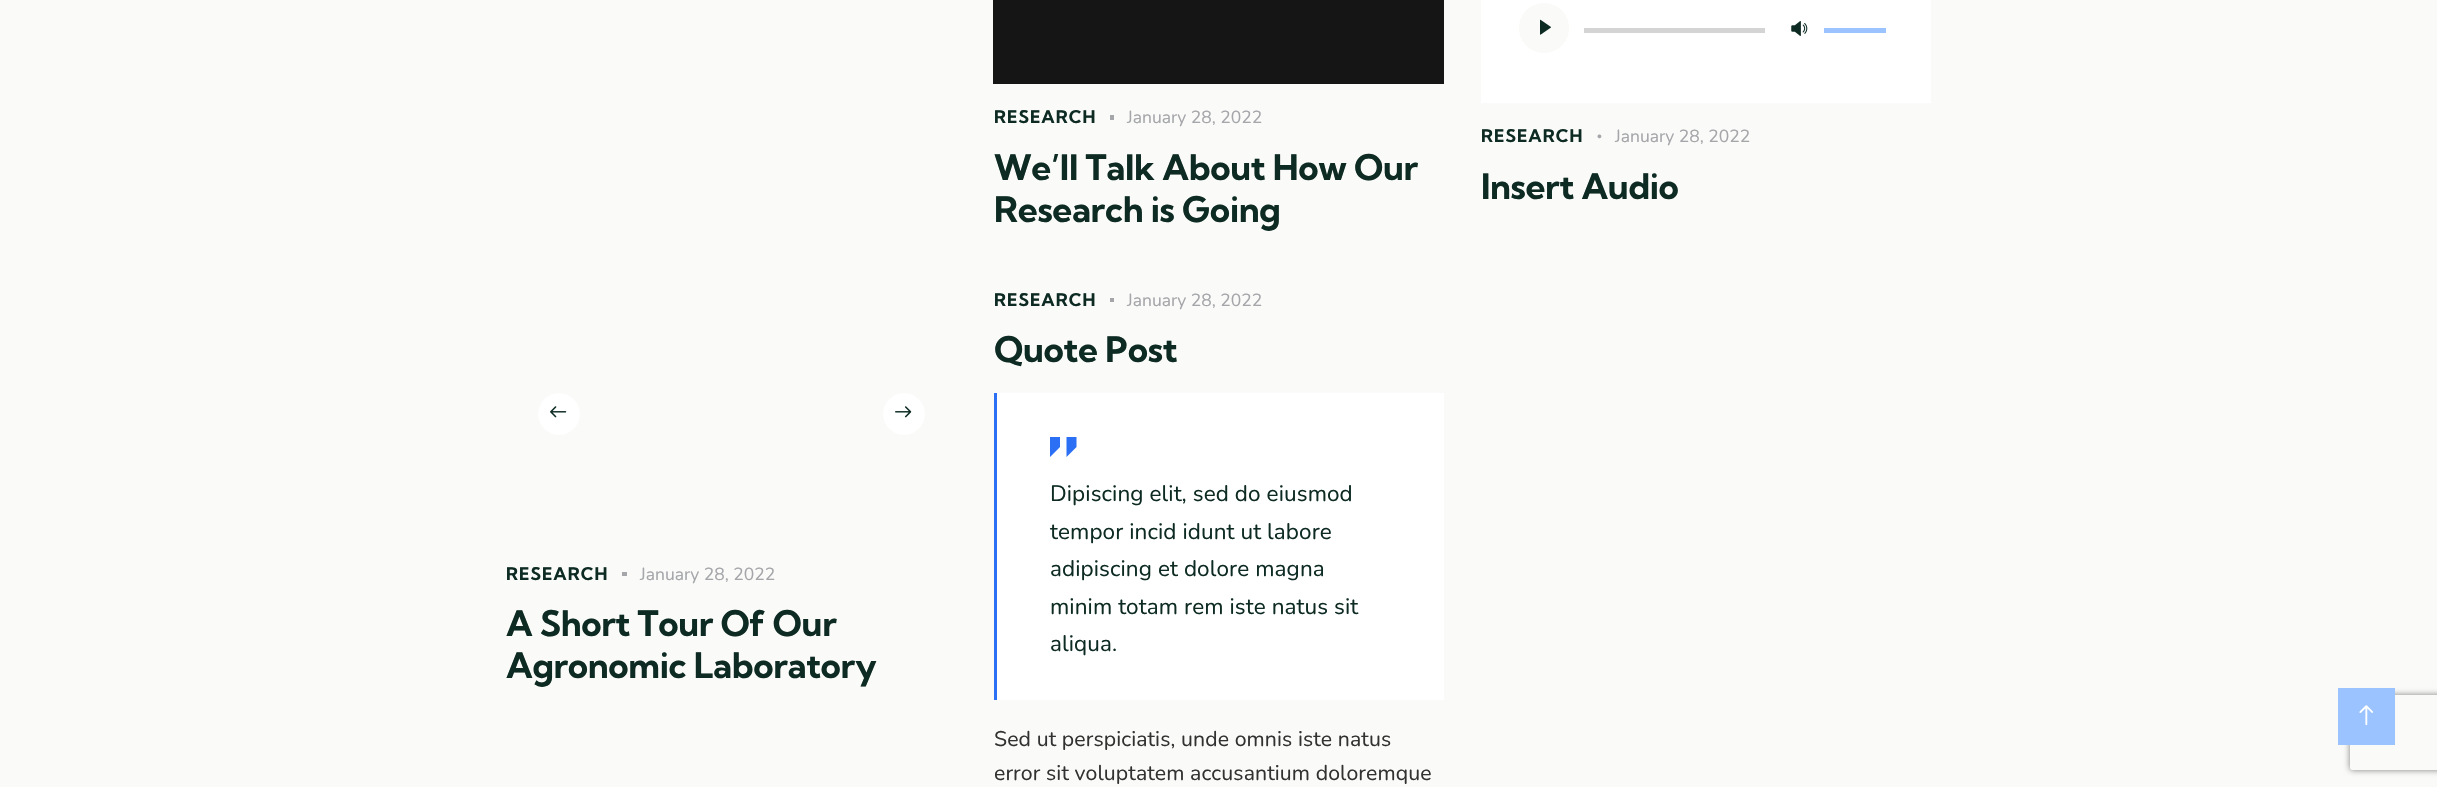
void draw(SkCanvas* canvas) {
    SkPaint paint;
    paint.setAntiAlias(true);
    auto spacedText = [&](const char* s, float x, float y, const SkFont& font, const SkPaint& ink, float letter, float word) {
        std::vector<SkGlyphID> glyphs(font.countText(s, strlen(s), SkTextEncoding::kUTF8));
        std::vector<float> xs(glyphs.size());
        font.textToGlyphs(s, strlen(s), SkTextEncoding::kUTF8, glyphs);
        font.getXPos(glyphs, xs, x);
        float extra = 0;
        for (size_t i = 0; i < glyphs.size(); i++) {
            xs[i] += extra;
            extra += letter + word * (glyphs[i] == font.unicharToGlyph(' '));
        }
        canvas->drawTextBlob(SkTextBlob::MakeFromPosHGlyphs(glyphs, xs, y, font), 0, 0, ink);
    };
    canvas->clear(0xFFFAFAF8);
    paint.setColor(0xFF151515);
    canvas->drawRect(SkRect::MakeXYWH(993, 0, 451, 84), paint);
    SkFont font1(fontMgr->matchFamilyStyle("Kumbh Sans", SkFontStyle::Bold()), 17.5f);
    font1.setSubpixel(true);
    paint.setColor(0xFF0D2B23);
    spacedText("RESEARCH", 994, 123, font1, paint, 1, 0);
    paint.setColor(0xFFA5A6AA);
    canvas->drawRect(SkRect::MakeXYWH(1110, 115, 4, 5), paint);
    SkFont font2(fontMgr->matchFamilyStyle("Nunito", SkFontStyle::Normal()), 17.5f);
    font2.setSubpixel(true);
    canvas->drawString("January 28, 2022", 1127, 123, font2, paint);
    SkFont font3(fontMgr->matchFamilyStyle("Kumbh Sans", SkFontStyle::Bold()), 35);
    font3.setSubpixel(true);
    paint.setColor(0xFF0D2B23);
    spacedText("We’ll Talk About How Our", 994, 180, font3, paint, -0.35f, 0);
    spacedText("Research is Going", 994, 222, font3, paint, -0.35f, 0);
    paint.setColor(0xFFFFFFFF);
    canvas->drawRect(SkRect::MakeXYWH(1481, 0, 450, 103), paint);
    paint.setColor(0xFFFAFAF8);
    canvas->drawCircle(1544, 28, 25, paint);
    canvas->drawImageRect(SkImages::DeferredFromEncodedData(SkData::MakeFromFileName("img1.png")), SkRect::MakeXYWH(1540, 19, 11, 16), SkSamplingOptions());
    paint.setColor(0xFFD4D4D4);
    canvas->drawRect(SkRect::MakeXYWH(1584, 28, 181, 5), paint);
    canvas->drawImageRect(SkImages::DeferredFromEncodedData(SkData::MakeFromFileName("img2.png")), SkRect::MakeXYWH(1791, 21, 17, 15), SkSamplingOptions());
    paint.setColor(0xFF9AC3FF);
    canvas->drawRect(SkRect::MakeXYWH(1824, 28, 62, 5), paint);
    paint.setColor(0xFF0D2B23);
    spacedText("RESEARCH", 1481, 142, font1, paint, 1, 0);
    canvas->drawImageRect(SkImages::DeferredFromEncodedData(SkData::MakeFromFileName("img3.png")), SkRect::MakeXYWH(1597, 134, 5, 5), SkSamplingOptions());
    paint.setColor(0xFFA5A6AA);
    canvas->drawString("January 28, 2022", 1615, 142, font2, paint);
    paint.setColor(0xFF0D2B23);
    spacedText("Insert Audio", 1481, 199, font3, paint, -0.35f, 0);
    paint.setColor(0xFFFFFFFF);
    canvas->drawCircle(559, 414, 21, paint);
    canvas->drawImageRect(SkImages::DeferredFromEncodedData(SkData::MakeFromFileName("img4.png")), SkRect::MakeXYWH(550, 406, 17, 12), SkSamplingOptions());
    canvas->drawCircle(904, 414, 21, paint);
    canvas->drawImageRect(SkImages::DeferredFromEncodedData(SkData::MakeFromFileName("img5.png")), SkRect::MakeXYWH(895, 406, 17, 12), SkSamplingOptions());
    paint.setColor(0xFF0D2B23);
    spacedText("RESEARCH", 506, 580, font1, paint, 1, 0);
    paint.setColor(0xFFA5A6AA);
    canvas->drawRect(SkRect::MakeXYWH(622, 572, 5, 4), paint);
    canvas->drawString("January 28, 2022", 640, 580, font2, paint);
    paint.setColor(0xFF0D2B23);
    spacedText("A Short Tour Of Our", 506, 636, font3, paint, -0.35f, 0);
    spacedText("Agronomic Laboratory", 506, 678, font3, paint, -0.35f, 0);
    spacedText("RESEARCH", 994, 306, font1, paint, 1, 0);
    paint.setColor(0xFFA5A6AA);
    canvas->drawRect(SkRect::MakeXYWH(1110, 298, 4, 4), paint);
    canvas->drawString("January 28, 2022", 1127, 306, font2, paint);
    paint.setColor(0xFF0D2B23);
    spacedText("Quote Post", 994, 362, font3, paint, -0.35f, 0);
    paint.setColor(0xFFFFFFFF);
    canvas->drawRect(SkRect::MakeXYWH(997, 393, 447, 307), paint);
    paint.setColor(0xFF2A6FF4);
    canvas->drawRect(SkRect::MakeXYWH(994, 393, 3, 307), paint);
    canvas->drawPath(SkPathBuilder().moveTo(1050, 437).lineTo(1050, 457).lineTo(1060, 447).lineTo(1060, 437).close().moveTo(1066.5f, 437).lineTo(1066.5f, 457).lineTo(1076.5f, 447).lineTo(1076.5f, 437).close().detach(), paint);
    SkFont font4(fontMgr->matchFamilyStyle("Nunito", SkFontStyle::Normal()), 22.5f);
    font4.setSubpixel(true);
    paint.setColor(0xFF0D2B23);
    spacedText("Dipiscing elit, sed do eiusmod", 1050, 501, font4, paint, 0.1f, 0);
    spacedText("tempor incid idunt ut labore", 1050, 539, font4, paint, 0.1f, 0);
    spacedText("adipiscing et dolore magna", 1050, 576, font4, paint, 0.1f, 0);
    spacedText("minim totam rem iste natus sit", 1050, 614, font4, paint, 0.1f, 0);
    spacedText("aliqua.", 1050, 651, font4, paint, 0.1f, 0);
    SkFont font5(fontMgr->matchFamilyStyle("Nunito", SkFontStyle::Normal()), 21.25f);
    font5.setSubpixel(true);
    paint.setColor(0xFF323232);
    spacedText("Sed ut perspiciatis, unde omnis iste natus", 994, 746, font5, paint, 0.1f, 0);
    spacedText("error sit voluptatem accusantium doloremque", 994, 780, font5, paint, 0.1f, 0);
    canvas->save();
    canvas->clipPath(SkPathBuilder(SkPathFillType::kEvenOdd).moveTo(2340, 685).lineTo(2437, 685).lineTo(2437, 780).lineTo(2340, 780).close().moveTo(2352.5f, 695).lineTo(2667.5f, 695).cubicTo(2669, 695, 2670, 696, 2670, 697.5f).lineTo(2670, 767.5f).cubicTo(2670, 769, 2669, 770, 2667.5f, 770).lineTo(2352.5f, 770).cubicTo(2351, 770, 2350, 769, 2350, 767.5f).lineTo(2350, 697.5f).cubicTo(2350, 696, 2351, 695, 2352.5f, 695).close().detach(), true);
    paint.setColor(0xFF808080);
    paint.setMaskFilter(SkMaskFilter::MakeBlur(kNormal_SkBlurStyle, 3));
    canvas->drawRoundRect(SkRect::MakeXYWH(2350, 695, 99, 75), 2.5f, 2.5f, paint);
    paint.setMaskFilter(nullptr);
    canvas->restore();
    paint.setColor(0xFF9AC3FF);
    canvas->drawRect(SkRect::MakeXYWH(2338, 688, 57, 57), paint);
    canvas->drawImageRect(SkImages::DeferredFromEncodedData(SkData::MakeFromFileName("img6.png")), SkRect::MakeXYWH(2359, 705, 14, 21), SkSamplingOptions());
}
